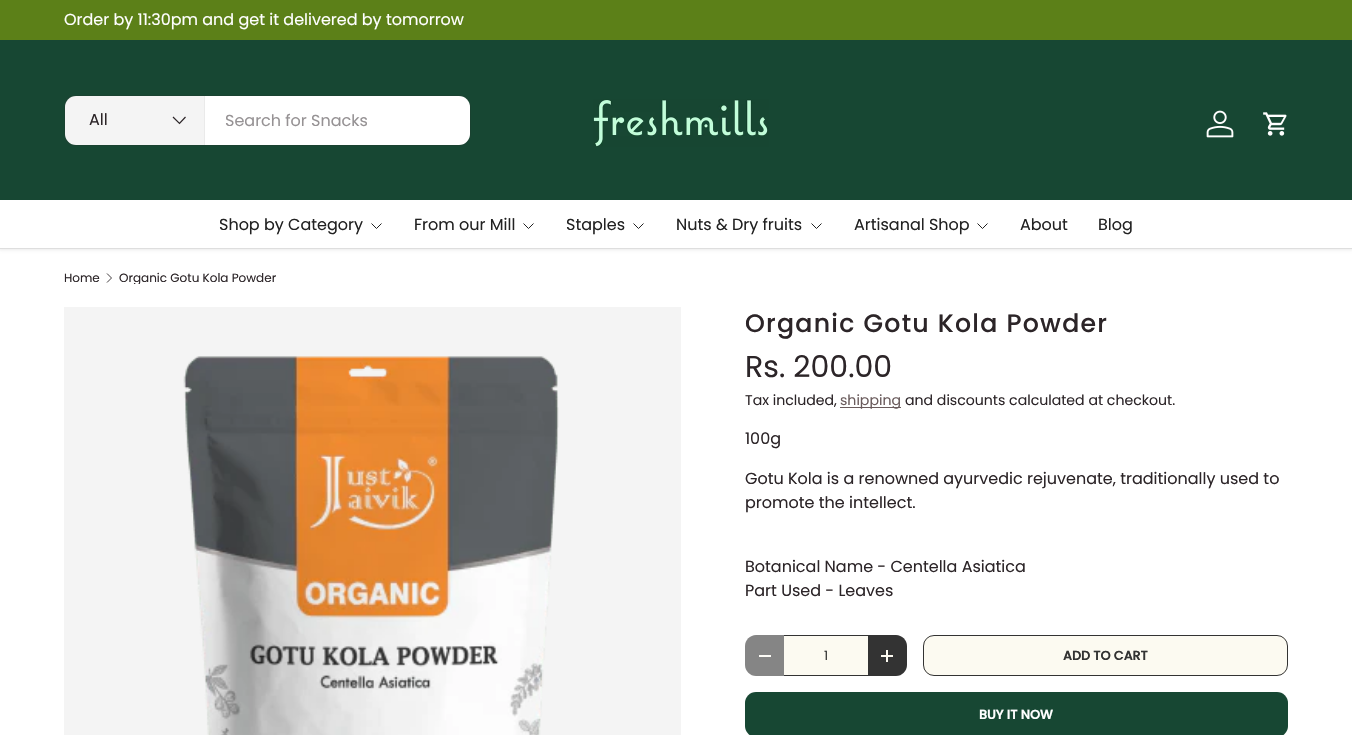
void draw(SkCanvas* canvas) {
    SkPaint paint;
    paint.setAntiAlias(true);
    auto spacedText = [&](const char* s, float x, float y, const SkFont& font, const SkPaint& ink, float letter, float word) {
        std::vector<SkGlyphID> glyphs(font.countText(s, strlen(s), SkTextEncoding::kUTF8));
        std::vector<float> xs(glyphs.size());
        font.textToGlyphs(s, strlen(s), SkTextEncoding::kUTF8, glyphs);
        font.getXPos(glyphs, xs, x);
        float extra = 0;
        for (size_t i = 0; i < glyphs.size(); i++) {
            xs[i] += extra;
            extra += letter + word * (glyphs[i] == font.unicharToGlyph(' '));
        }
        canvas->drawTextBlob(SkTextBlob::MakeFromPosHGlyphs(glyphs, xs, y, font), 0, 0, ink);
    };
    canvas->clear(0xFFFFFFFF);
    paint.setColor(0x14000000);
    paint.setMaskFilter(SkMaskFilter::MakeBlur(kNormal_SkBlurStyle, 1.5f));
    canvas->drawRect(SkRect::MakeXYWH(-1, 39, 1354, 211), paint);
    paint.setMaskFilter(nullptr);
    paint.setColor(0xFF5C8018);
    canvas->drawRect(SkRect::MakeXYWH(0, 0, 1352, 40), paint);
    SkFont font1(fontMgr->matchFamilyStyle("Poppins", SkFontStyle::Normal()), 16);
    font1.setSubpixel(true);
    paint.setColor(0xFFFFFFFF);
    canvas->drawString("Order by 11:30pm and get it delivered by tomorrow", 64, 25, font1, paint);
    paint.setColor(0xFF174733);
    canvas->drawRect(SkRect::MakeXYWH(0, 40, 1352, 160), paint);
    paint.setStyle(SkPaint::kStroke_Style);
    paint.setStrokeWidth(1);
    paint.setColor(0xFF1A4231);
    canvas->drawRoundRect(SkRect::MakeXYWH(64.5f, 95.5f, 406, 50), 10.5f, 10.5f, paint);
    paint.setStyle(SkPaint::kFill_Style);
    paint.setColor(0xFFFFFFFF);
    canvas->drawRoundRect(SkRect::MakeXYWH(65, 96, 405, 49), 11, 11, paint);
    paint.setColor(0x0D2C2528);
    canvas->drawRect(SkRect::MakeXYWH(65, 96, 139, 49), paint);
    paint.setColor(0xFFEAEAEA);
    canvas->drawRect(SkRect::MakeXYWH(204, 96, 1, 49), paint);
    paint.setColor(0xFF2C2528);
    canvas->drawString("All", 89, 125, font1, paint);
    paint.setStyle(SkPaint::kStroke_Style);
    paint.setStrokeWidth(1.2f);
    canvas->drawPath(SkPathBuilder().moveTo(185.5f, 117).lineTo(179.5f, 123.5f).lineTo(173, 117).detach(), paint);
    paint.setStyle(SkPaint::kFill_Style);
    paint.setColor(0xFF969294);
    canvas->drawString("Search for Snacks", 225, 126, font1, paint);
    canvas->drawImageRect(SkImages::DeferredFromEncodedData(SkData::MakeFromFileName("img1.png")), SkRect::MakeXYWH(593, 99, 176, 48), SkSamplingOptions());
    canvas->drawImageRect(SkImages::DeferredFromEncodedData(SkData::MakeFromFileName("img2.png")), SkRect::MakeXYWH(1206, 110, 28, 28), SkSamplingOptions());
    canvas->drawImageRect(SkImages::DeferredFromEncodedData(SkData::MakeFromFileName("img3.png")), SkRect::MakeXYWH(1263, 112, 24, 24), SkSamplingOptions());
    paint.setColor(0xFFFFFFFF);
    canvas->drawRect(SkRect::MakeXYWH(0, 200, 1352, 48), paint);
    paint.setColor(0xFF222222);
    canvas->drawString("Shop by Category", 219, 230, font1, paint);
    paint.setStyle(SkPaint::kStroke_Style);
    paint.setStrokeWidth(1);
    canvas->drawPath(SkPathBuilder().moveTo(381.5f, 223.5f).lineTo(376.5f, 228.5f).lineTo(371.5f, 223.5f).detach(), paint);
    paint.setStyle(SkPaint::kFill_Style);
    canvas->drawString("From our Mill", 414, 230, font1, paint);
    paint.setStyle(SkPaint::kStroke_Style);
    canvas->drawPath(SkPathBuilder().moveTo(533.5f, 223.5f).lineTo(528.5f, 228.5f).lineTo(523.5f, 223.5f).detach(), paint);
    paint.setStyle(SkPaint::kFill_Style);
    canvas->drawString("Staples", 566, 230, font1, paint);
    paint.setStyle(SkPaint::kStroke_Style);
    canvas->drawPath(SkPathBuilder().moveTo(643.5f, 223.5f).lineTo(638.5f, 228.5f).lineTo(633.5f, 223.5f).detach(), paint);
    paint.setStyle(SkPaint::kFill_Style);
    canvas->drawString("Nuts & Dry fruits", 676, 230, font1, paint);
    paint.setStyle(SkPaint::kStroke_Style);
    canvas->drawPath(SkPathBuilder().moveTo(821.5f, 223.5f).lineTo(816.5f, 228.5f).lineTo(811.5f, 223.5f).detach(), paint);
    paint.setStyle(SkPaint::kFill_Style);
    canvas->drawString("Artisanal Shop", 854, 230, font1, paint);
    paint.setStyle(SkPaint::kStroke_Style);
    canvas->drawPath(SkPathBuilder().moveTo(987.5f, 223.5f).lineTo(982.5f, 228.5f).lineTo(977.5f, 223.5f).detach(), paint);
    paint.setStyle(SkPaint::kFill_Style);
    canvas->drawString("About", 1020, 230, font1, paint);
    canvas->drawString("Blog", 1098, 230, font1, paint);
    paint.setColor(0xFFDEDEDE);
    canvas->drawRect(SkRect::MakeXYWH(0, 248, 1352, 1), paint);
    SkFont font2(fontMgr->matchFamilyStyle("Poppins", SkFontStyle::Normal()), 12);
    font2.setSubpixel(true);
    paint.setColor(0xFF2C2528);
    canvas->drawString("Home", 64, 282, font2, paint);
    paint.setStyle(SkPaint::kStroke_Style);
    paint.setStrokeWidth(0.9f);
    canvas->drawPath(SkPathBuilder().moveTo(107, 273.5f).lineTo(111.5f, 278).lineTo(107, 282.5f).detach(), paint);
    canvas->save();
    canvas->clipRect(SkRect::MakeXYWH(119, 272, 157, 12));
    paint.setStyle(SkPaint::kFill_Style);
    canvas->drawString("Organic Gotu Kola Powder", 119, 282, font2, paint);
    canvas->restore();
    paint.setColor(0xFFF4F4F4);
    canvas->drawRect(SkRect::MakeXYWH(64, 307, 617, 428), paint);
    canvas->drawImageRect(SkImages::DeferredFromEncodedData(SkData::MakeFromFileName("img4.png")), SkRect::MakeXYWH(183, 356, 376, 379), SkSamplingOptions());
    SkFont font3(fontMgr->matchFamilyStyle("Poppins", SkFontStyle(500, SkFontStyle::kNormal_Width, SkFontStyle::kUpright_Slant)), 25.25f);
    font3.setSubpixel(true);
    paint.setColor(0xFF2C2528);
    spacedText("Organic Gotu Kola Powder", 745, 332, font3, paint, 1.25f, 0);
    SkFont font4(fontMgr->matchFamilyStyle("Poppins", SkFontStyle::Normal()), 30);
    font4.setSubpixel(true);
    canvas->drawString("Rs. 200.00", 745, 377, font4, paint);
    SkFont font5(fontMgr->matchFamilyStyle("Poppins", SkFontStyle::Normal()), 14.1f);
    font5.setSubpixel(true);
    canvas->drawString("Tax included,", 745, 405, font5, paint);
    paint.setColor(0xFF6A5B5C);
    canvas->drawRect(SkRect::MakeXYWH(840, 407, 61, 1), paint);
    canvas->drawString("shipping", 840, 405, font5, paint);
    paint.setColor(0xFF2C2528);
    canvas->drawString("and discounts calculated at checkout.", 905, 405, font5, paint);
    canvas->drawString("100g", 745, 444, font1, paint);
    canvas->drawString("Gotu Kola is a renowned ayurvedic rejuvenate, traditionally used to", 745, 484, font1, paint);
    canvas->drawString("promote the intellect.", 745, 508, font1, paint);
    canvas->drawString("Botanical Name - Centella Asiatica", 745, 572, font1, paint);
    canvas->drawString("Part Used - Leaves", 745, 596, font1, paint);
    paint.setColor(0xFF858585);
    canvas->drawPath(SkPathBuilder().moveTo(756, 635).lineTo(784, 635).lineTo(784, 676).lineTo(756, 676).cubicTo(750, 676, 745, 671, 745, 665).lineTo(745, 646).cubicTo(745, 640, 750, 635, 756, 635).close().detach(), paint);
    paint.setColor(0xFFFDFCF7);
    canvas->drawRect(SkRect::MakeXYWH(759, 655, 12, 2), paint);
    paint.setColor(0xFFFCFAF1);
    canvas->drawRect(SkRect::MakeXYWH(784, 636, 84, 39), paint);
    paint.setColor(0xFF333333);
    canvas->drawRect(SkRect::MakeXYWH(784, 675, 84, 1), paint);
    canvas->drawRect(SkRect::MakeXYWH(784, 635, 84, 1), paint);
    SkFont font6(fontMgr->matchFamilyStyle("Poppins", SkFontStyle::Normal()), 12.75f);
    font6.setSubpixel(true);
    canvas->drawString("1", 824, 660, font6, paint);
    canvas->drawPath(SkPathBuilder().moveTo(868, 635).lineTo(896, 635).cubicTo(902, 635, 907, 640, 907, 646).lineTo(907, 665).cubicTo(907, 671, 902, 676, 896, 676).lineTo(868, 676).close().detach(), paint);
    paint.setColor(0xFFFCFAF1);
    canvas->drawRect(SkRect::MakeXYWH(881, 655, 12, 2), paint);
    canvas->drawRect(SkRect::MakeXYWH(886, 650, 2, 12), paint);
    canvas->save();
    canvas->clipPath(SkPathBuilder().moveTo(934, 635).lineTo(1277, 635).cubicTo(1283, 635, 1288, 640, 1288, 646).lineTo(1288, 665).cubicTo(1288, 671, 1283, 676, 1277, 676).lineTo(934, 676).cubicTo(928, 676, 923, 671, 923, 665).lineTo(923, 646).cubicTo(923, 640, 928, 635, 934, 635).close().detach(), true);
    {
        const SkColor colors[] = {0x12333333, 0xFFFCFAF1, 0xFFFCFAF1};
        const float stops[] = {0.6f, 0.6f, 1};
        const SkPoint ends[] = {{225, 527}, {1260, 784}};
        paint.setShader(SkGradientShader::MakeLinear(ends, colors, stops, 3, SkTileMode::kClamp));
        paint.setAlpha(255);
    }
    canvas->drawRect(SkRect::MakeXYWH(923, 636, 364, 39), paint);
    canvas->restore();
    paint.setStyle(SkPaint::kStroke_Style);
    paint.setStrokeWidth(1);
    paint.setShader(nullptr);
    paint.setColor(0xFF333333);
    canvas->drawRoundRect(SkRect::MakeXYWH(923.5f, 635.5f, 364, 40), 10.5f, 10.5f, paint);
    SkFont font7(fontMgr->matchFamilyStyle("Poppins", SkFontStyle::Bold()), 12.75f);
    font7.setSubpixel(true);
    paint.setStyle(SkPaint::kFill_Style);
    canvas->drawString("ADD TO CART", 1063, 660, font7, paint);
    {
        const SkColor colors[] = {0xFF406D5A, 0xFF174733, 0xFF174733};
        const float stops[] = {0.6f, 0.6f, 1};
        const SkPoint ends[] = {{-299, 522}, {1246, 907}};
        paint.setShader(SkGradientShader::MakeLinear(ends, colors, stops, 3, SkTileMode::kClamp));
        paint.setAlpha(255);
    }
    canvas->drawRoundRect(SkRect::MakeXYWH(745, 692, 543, 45), 11, 11, paint);
    paint.setShader(nullptr);
    paint.setColor(0xFFFFFFFF);
    canvas->drawString("BUY IT NOW", 979, 719, font7, paint);
}
